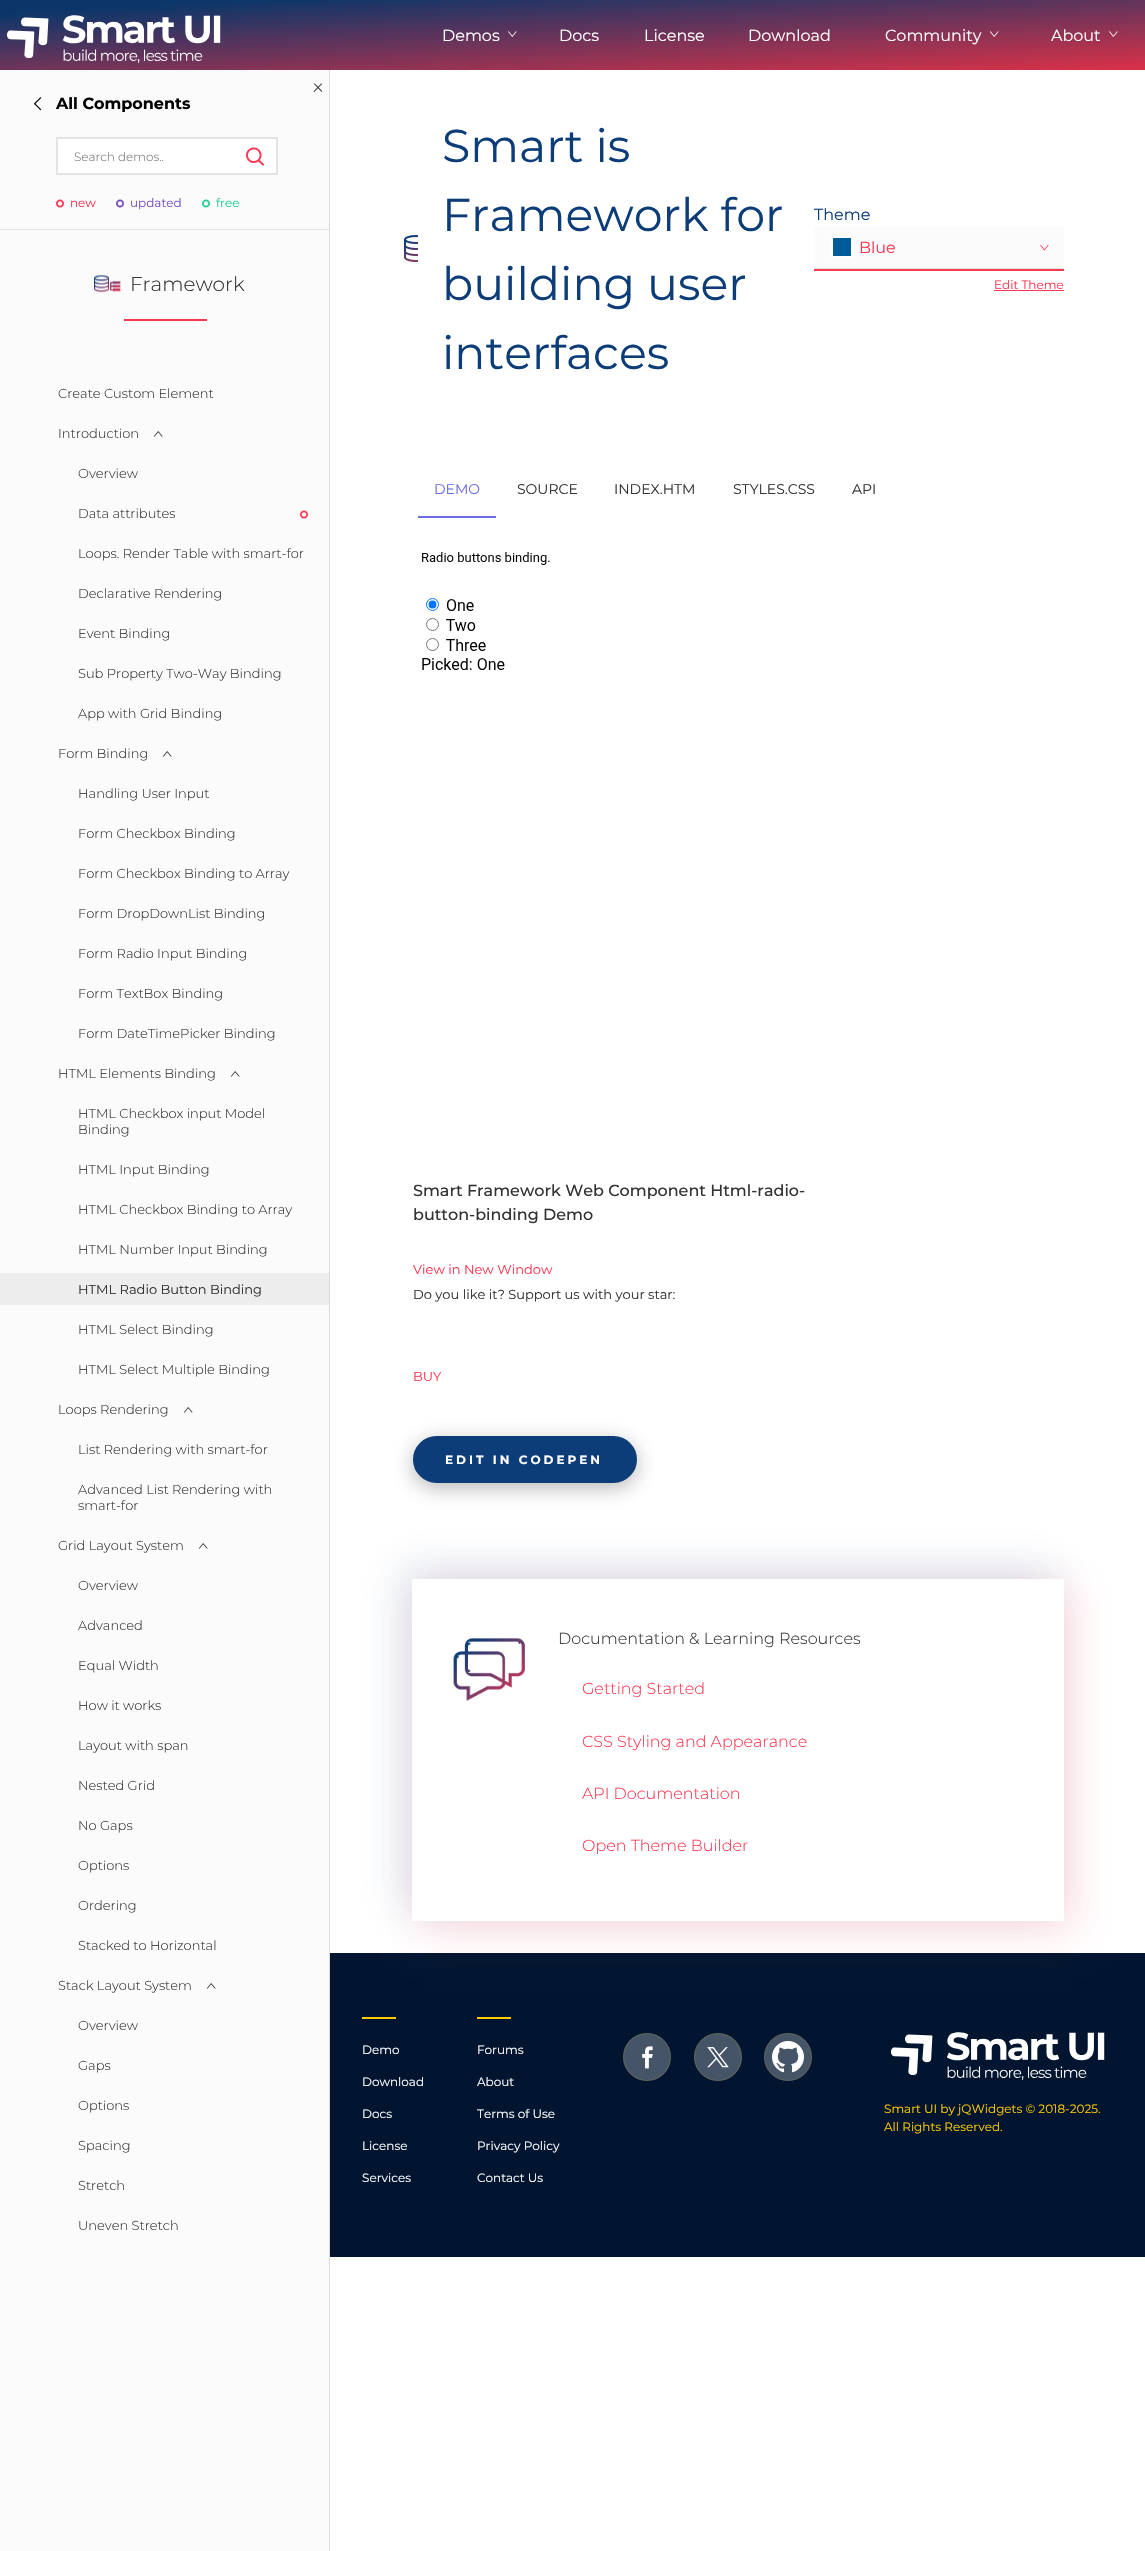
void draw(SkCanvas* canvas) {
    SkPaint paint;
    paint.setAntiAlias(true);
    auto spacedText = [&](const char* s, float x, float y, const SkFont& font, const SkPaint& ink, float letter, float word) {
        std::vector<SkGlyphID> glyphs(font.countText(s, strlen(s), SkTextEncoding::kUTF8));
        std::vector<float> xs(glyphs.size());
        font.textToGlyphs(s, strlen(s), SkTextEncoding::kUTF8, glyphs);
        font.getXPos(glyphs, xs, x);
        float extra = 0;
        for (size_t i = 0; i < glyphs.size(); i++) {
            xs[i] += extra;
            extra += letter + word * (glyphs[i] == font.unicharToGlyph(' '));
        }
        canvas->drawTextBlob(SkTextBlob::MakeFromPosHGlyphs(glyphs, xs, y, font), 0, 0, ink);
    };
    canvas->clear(0xFFFFFFFF);
    {
        const SkColor colors[] = {0xFF0C3669, 0xFFDA3148};
        const float stops[] = {0.1f, 1};
        const SkPoint ends[] = {{569, -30}, {576, 100}};
        paint.setShader(SkGradientShader::MakeLinear(ends, colors, stops, 2, SkTileMode::kClamp));
        paint.setAlpha(255);
    }
    canvas->drawRect(SkRect::MakeXYWH(0, 0, 1145, 70), paint);
    canvas->drawImageRect(SkImages::DeferredFromEncodedData(SkData::MakeFromFileName("img1.png")), SkRect::MakeXYWH(7, 15, 214, 48), SkSamplingOptions());
    SkFont font1(fontMgr->matchFamilyStyle("Montserrat", SkFontStyle::Normal()), 16);
    font1.setSubpixel(true);
    paint.setShader(nullptr);
    paint.setColor(0xFFFFFFFF);
    canvas->drawString("Demos", 442, 41, font1, paint);
    canvas->drawImageRect(SkImages::DeferredFromEncodedData(SkData::MakeFromFileName("img2.png")), SkRect::MakeXYWH(508, 31, 9, 6), SkSamplingOptions());
    canvas->drawString("Docs", 559, 41, font1, paint);
    canvas->drawString("License", 644, 41, font1, paint);
    canvas->drawString("Download", 748, 41, font1, paint);
    canvas->drawString("Community", 885, 41, font1, paint);
    canvas->drawImageRect(SkImages::DeferredFromEncodedData(SkData::MakeFromFileName("img3.png")), SkRect::MakeXYWH(990, 31, 9, 6), SkSamplingOptions());
    canvas->drawString("About", 1051, 41, font1, paint);
    canvas->drawImageRect(SkImages::DeferredFromEncodedData(SkData::MakeFromFileName("img4.png")), SkRect::MakeXYWH(1109, 31, 9, 6), SkSamplingOptions());
    paint.setColor(0xFFFBFBFC);
    canvas->drawRect(SkRect::MakeXYWH(0, 70, 329, 2481), paint);
    canvas->drawImageRect(SkImages::DeferredFromEncodedData(SkData::MakeFromFileName("img5.png")), SkRect::MakeXYWH(313, 83, 10, 9), SkSamplingOptions());
    paint.setColor(0xFFDADADC);
    canvas->drawRect(SkRect::MakeXYWH(329, 70, 1, 2481), paint);
    paint.setColor(0xFFE3E3E3);
    canvas->drawRect(SkRect::MakeXYWH(0, 229, 329, 1), paint);
    canvas->drawImageRect(SkImages::DeferredFromEncodedData(SkData::MakeFromFileName("img6.png")), SkRect::MakeXYWH(34, 97, 8, 14), SkSamplingOptions());
    SkFont font2(fontMgr->matchFamilyStyle("Montserrat", SkFontStyle::Bold()), 16);
    font2.setSubpixel(true);
    paint.setColor(0xFF000000);
    canvas->drawString("All Components", 56, 109, font2, paint);
    paint.setColor(0xFFFFFFFF);
    canvas->drawRect(SkRect::MakeXYWH(57, 138, 220, 36), paint);
    paint.setStyle(SkPaint::kStroke_Style);
    paint.setStrokeWidth(2);
    paint.setColor(0xFFE3E3E3);
    canvas->drawRect(SkRect::MakeXYWH(57, 138, 220, 36), paint);
    SkFont font3(fontMgr->matchFamilyStyle("Montserrat", SkFontStyle(300, SkFontStyle::kNormal_Width, SkFontStyle::kUpright_Slant)), 12);
    font3.setSubpixel(true);
    paint.setStyle(SkPaint::kFill_Style);
    paint.setColor(0xFF757575);
    canvas->drawString("Search demos..", 74, 161, font3, paint);
    canvas->drawImageRect(SkImages::DeferredFromEncodedData(SkData::MakeFromFileName("img7.png")), SkRect::MakeXYWH(246, 147, 19, 19), SkSamplingOptions());
    canvas->drawImageRect(SkImages::DeferredFromEncodedData(SkData::MakeFromFileName("img8.png")), SkRect::MakeXYWH(56, 199, 8, 9), SkSamplingOptions());
    SkFont font4(fontMgr->matchFamilyStyle("Montserrat", SkFontStyle::Normal()), 12);
    font4.setSubpixel(true);
    paint.setColor(0xFFFC3752);
    canvas->drawString("new", 70, 207, font4, paint);
    canvas->drawImageRect(SkImages::DeferredFromEncodedData(SkData::MakeFromFileName("img9.png")), SkRect::MakeXYWH(116, 199, 8, 9), SkSamplingOptions());
    paint.setColor(0xFF764EBE);
    canvas->drawString("updated", 130, 207, font4, paint);
    canvas->drawImageRect(SkImages::DeferredFromEncodedData(SkData::MakeFromFileName("img10.png")), SkRect::MakeXYWH(202, 199, 8, 9), SkSamplingOptions());
    paint.setColor(0xFF24CE8D);
    canvas->drawString("free", 216, 207, font4, paint);
    canvas->drawImageRect(SkImages::DeferredFromEncodedData(SkData::MakeFromFileName("img11.png")), SkRect::MakeXYWH(94, 275, 27, 18), SkSamplingOptions());
    SkFont font5(fontMgr->matchFamilyStyle("Montserrat", SkFontStyle(300, SkFontStyle::kNormal_Width, SkFontStyle::kUpright_Slant)), 20);
    font5.setSubpixel(true);
    paint.setColor(0xFF333333);
    canvas->drawString("Framework", 130, 291, font5, paint);
    paint.setColor(0xFFFC3752);
    canvas->drawRect(SkRect::MakeXYWH(124, 319, 83, 2), paint);
    SkFont font6(fontMgr->matchFamilyStyle("Montserrat", SkFontStyle(300, SkFontStyle::kNormal_Width, SkFontStyle::kUpright_Slant)), 13);
    font6.setSubpixel(true);
    paint.setColor(0xFF333333);
    canvas->drawString("Create Custom Element", 58, 398, font6, paint);
    canvas->drawString("Introduction", 58, 438, font6, paint);
    canvas->drawImageRect(SkImages::DeferredFromEncodedData(SkData::MakeFromFileName("img12.png")), SkRect::MakeXYWH(154, 431, 9, 6), SkSamplingOptions());
    canvas->drawString("Overview", 78, 478, font6, paint);
    canvas->drawString("Data attributes", 78, 518, font6, paint);
    canvas->drawImageRect(SkImages::DeferredFromEncodedData(SkData::MakeFromFileName("img8.png")), SkRect::MakeXYWH(300, 510, 8, 9), SkSamplingOptions());
    canvas->drawString("Loops. Render Table with smart-for", 78, 558, font6, paint);
    canvas->drawString("Declarative Rendering", 78, 598, font6, paint);
    canvas->drawString("Event Binding", 78, 638, font6, paint);
    canvas->drawString("Sub Property Two-Way Binding", 78, 678, font6, paint);
    canvas->drawString("App with Grid Binding", 78, 718, font6, paint);
    canvas->drawString("Form Binding", 58, 758, font6, paint);
    canvas->drawImageRect(SkImages::DeferredFromEncodedData(SkData::MakeFromFileName("img12.png")), SkRect::MakeXYWH(163, 751, 9, 6), SkSamplingOptions());
    canvas->drawString("Handling User Input", 78, 798, font6, paint);
    canvas->drawString("Form Checkbox Binding", 78, 838, font6, paint);
    canvas->drawString("Form Checkbox Binding to Array", 78, 878, font6, paint);
    canvas->drawString("Form DropDownList Binding", 78, 918, font6, paint);
    canvas->drawString("Form Radio Input Binding", 78, 958, font6, paint);
    canvas->drawString("Form TextBox Binding", 78, 998, font6, paint);
    canvas->drawString("Form DateTimePicker Binding", 78, 1038, font6, paint);
    canvas->drawString("HTML Elements Binding", 58, 1078, font6, paint);
    canvas->drawImageRect(SkImages::DeferredFromEncodedData(SkData::MakeFromFileName("img12.png")), SkRect::MakeXYWH(231, 1071, 9, 6), SkSamplingOptions());
    canvas->drawString("HTML Checkbox input Model", 78, 1118, font6, paint);
    canvas->drawString("Binding", 78, 1134, font6, paint);
    canvas->drawString("HTML Input Binding", 78, 1174, font6, paint);
    canvas->drawString("HTML Checkbox Binding to Array", 78, 1214, font6, paint);
    canvas->drawString("HTML Number Input Binding", 78, 1254, font6, paint);
    paint.setColor(0xFFEDEDED);
    canvas->drawRect(SkRect::MakeXYWH(0, 1273, 329, 32), paint);
    SkFont font7(fontMgr->matchFamilyStyle("Montserrat", SkFontStyle::Normal()), 13);
    font7.setSubpixel(true);
    paint.setColor(0xFF333333);
    canvas->drawString("HTML Radio Button Binding", 78, 1294, font7, paint);
    canvas->drawString("HTML Select Binding", 78, 1334, font6, paint);
    canvas->drawString("HTML Select Multiple Binding", 78, 1374, font6, paint);
    canvas->drawString("Loops Rendering", 58, 1414, font6, paint);
    canvas->drawImageRect(SkImages::DeferredFromEncodedData(SkData::MakeFromFileName("img12.png")), SkRect::MakeXYWH(184, 1407, 9, 6), SkSamplingOptions());
    canvas->drawString("List Rendering with smart-for", 78, 1454, font6, paint);
    canvas->drawString("Advanced List Rendering with", 78, 1494, font6, paint);
    canvas->drawString("smart-for", 78, 1510, font6, paint);
    canvas->drawString("Grid Layout System", 58, 1550, font6, paint);
    canvas->drawImageRect(SkImages::DeferredFromEncodedData(SkData::MakeFromFileName("img12.png")), SkRect::MakeXYWH(199, 1543, 9, 6), SkSamplingOptions());
    canvas->drawString("Overview", 78, 1590, font6, paint);
    canvas->drawString("Advanced", 78, 1630, font6, paint);
    canvas->drawString("Equal Width", 78, 1670, font6, paint);
    canvas->drawString("How it works", 78, 1710, font6, paint);
    canvas->drawString("Layout with span", 78, 1750, font6, paint);
    canvas->drawString("Nested Grid", 78, 1790, font6, paint);
    canvas->drawString("No Gaps", 78, 1830, font6, paint);
    canvas->drawString("Options", 78, 1870, font6, paint);
    canvas->drawString("Ordering", 78, 1910, font6, paint);
    canvas->drawString("Stacked to Horizontal", 78, 1950, font6, paint);
    canvas->drawString("Stack Layout System", 58, 1990, font6, paint);
    canvas->drawImageRect(SkImages::DeferredFromEncodedData(SkData::MakeFromFileName("img12.png")), SkRect::MakeXYWH(207, 1983, 9, 6), SkSamplingOptions());
    canvas->drawString("Overview", 78, 2030, font6, paint);
    canvas->drawString("Gaps", 78, 2070, font6, paint);
    canvas->drawString("Options", 78, 2110, font6, paint);
    canvas->drawString("Spacing", 78, 2150, font6, paint);
    canvas->drawString("Stretch", 78, 2190, font6, paint);
    canvas->drawString("Uneven Stretch", 78, 2230, font6, paint);
    canvas->drawImageRect(SkImages::DeferredFromEncodedData(SkData::MakeFromFileName("img13.png")), SkRect::MakeXYWH(404, 235, 14, 27), SkSamplingOptions());
    SkFont font8(fontMgr->matchFamilyStyle("Montserrat", SkFontStyle::Normal()), 46);
    font8.setSubpixel(true);
    paint.setColor(0xFF0C3D78);
    canvas->drawString("Smart is", 442, 162, font8, paint);
    canvas->drawString("Framework for", 442, 231, font8, paint);
    canvas->drawString("building user", 442, 300, font8, paint);
    canvas->drawString("interfaces", 442, 369, font8, paint);
    canvas->drawString("Theme", 814, 220, font1, paint);
    paint.setColor(0xFFFC3752);
    canvas->drawRect(SkRect::MakeXYWH(814, 269, 250, 2), paint);
    paint.setColor(0xFFFBFBFC);
    canvas->drawRect(SkRect::MakeXYWH(814, 227, 250, 42), paint);
    paint.setColor(0xFFE2E2E3);
    canvas->drawPath(SkPathBuilder().moveTo(1064, 269).lineTo(814, 269).lineTo(815, 268).lineTo(1063, 268).close().detach(), paint);
    paint.setColor(0xFF005C99);
    canvas->drawRect(SkRect::MakeXYWH(832, 237, 20, 20), paint);
    paint.setStyle(SkPaint::kStroke_Style);
    paint.setColor(0xFFFFFFFF);
    canvas->drawRect(SkRect::MakeXYWH(832, 237, 20, 20), paint);
    paint.setStyle(SkPaint::kFill_Style);
    paint.setColor(0xFFFC3752);
    canvas->drawString("Blue", 859, 253, font1, paint);
    canvas->drawImageRect(SkImages::DeferredFromEncodedData(SkData::MakeFromFileName("img14.png")), SkRect::MakeXYWH(1040, 244, 9, 7), SkSamplingOptions());
    canvas->drawString("Edit Theme", 994, 289, font4, paint);
    canvas->drawRect(SkRect::MakeXYWH(994, 290, 70, 1), paint);
    SkFont font9(fontMgr->matchFamilyStyle("Montserrat", SkFontStyle::Normal()), 14);
    font9.setSubpixel(true);
    paint.setColor(0xFF6A6EE2);
    canvas->drawString("DEMO", 434, 494, font9, paint);
    paint.setColor(0xFF333333);
    canvas->drawString("SOURCE", 517, 494, font9, paint);
    canvas->drawString("INDEX.HTM", 614, 494, font9, paint);
    canvas->drawString("STYLES.CSS", 733, 494, font9, paint);
    canvas->drawString("API", 852, 494, font9, paint);
    paint.setColor(0xFF6A6EE2);
    canvas->drawRect(SkRect::MakeXYWH(418, 516, 78, 2), paint);
    canvas->drawImageRect(SkImages::DeferredFromEncodedData(SkData::MakeFromFileName("img15.png")), SkRect::MakeXYWH(422, 552, 128, 118), SkSamplingOptions());
    SkFont font10(fontMgr->matchFamilyStyle("Montserrat", SkFontStyle(500, SkFontStyle::kNormal_Width, SkFontStyle::kUpright_Slant)), 16);
    font10.setSubpixel(true);
    paint.setColor(0xFF333333);
    canvas->drawString("Smart Framework Web Component Html-radio-", 413, 1196, font10, paint);
    canvas->drawString("button-binding Demo", 413, 1220, font10, paint);
    paint.setColor(0xFFFC3752);
    canvas->drawString("View in New Window", 413, 1274, font7, paint);
    paint.setColor(0xFF333333);
    canvas->drawString("Do you like it? Support us with your star:", 413, 1299, font7, paint);
    paint.setColor(0xFFFC3752);
    canvas->drawString("BUY", 413, 1381, font7, paint);
    paint.setColor(0x59333333);
    paint.setMaskFilter(SkMaskFilter::MakeBlur(kNormal_SkBlurStyle, 10));
    canvas->drawRoundRect(SkRect::MakeXYWH(413, 1441, 224, 47), 23.5f, 23.5f, paint);
    paint.setMaskFilter(nullptr);
    paint.setColor(0xFF0C3D78);
    canvas->drawRoundRect(SkRect::MakeXYWH(414, 1437, 222, 45), 22.5f, 22.5f, paint);
    paint.setStyle(SkPaint::kStroke_Style);
    canvas->drawRoundRect(SkRect::MakeXYWH(414, 1437, 222, 45), 22.5f, 22.5f, paint);
    SkFont font11(fontMgr->matchFamilyStyle("Montserrat", SkFontStyle::Bold()), 12);
    font11.setSubpixel(true);
    paint.setStyle(SkPaint::kFill_Style);
    paint.setColor(0xFFFFFFFF);
    spacedText("EDIT IN CODEPEN", 445, 1464, font11, paint, 3, 0);
    paint.setColor(0xFF011530);
    canvas->drawRect(SkRect::MakeXYWH(330, 1953, 815, 304), paint);
    canvas->save();
    canvas->clipPath(SkPathBuilder(SkPathFillType::kEvenOdd).moveTo(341, 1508).lineTo(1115, 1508).lineTo(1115, 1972).lineTo(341, 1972).close().moveTo(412, 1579).lineTo(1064, 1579).lineTo(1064, 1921).lineTo(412, 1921).close().detach(), true);
    paint.setColor(0x260C3D78);
    paint.setMaskFilter(SkMaskFilter::MakeBlur(kNormal_SkBlurStyle, 20));
    canvas->drawRect(SkRect::MakeXYWH(402, 1569, 652, 342), paint);
    paint.setMaskFilter(nullptr);
    canvas->restore();
    canvas->save();
    canvas->clipPath(SkPathBuilder(SkPathFillType::kEvenOdd).moveTo(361, 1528).lineTo(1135, 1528).lineTo(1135, 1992).lineTo(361, 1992).close().moveTo(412, 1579).lineTo(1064, 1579).lineTo(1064, 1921).lineTo(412, 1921).close().detach(), true);
    paint.setColor(0x26FC3752);
    paint.setMaskFilter(SkMaskFilter::MakeBlur(kNormal_SkBlurStyle, 20));
    canvas->drawRect(SkRect::MakeXYWH(422, 1589, 652, 342), paint);
    paint.setMaskFilter(nullptr);
    canvas->restore();
    canvas->drawImageRect(SkImages::DeferredFromEncodedData(SkData::MakeFromFileName("img16.png")), SkRect::MakeXYWH(453, 1638, 72, 63), SkSamplingOptions());
    SkFont font12(fontMgr->matchFamilyStyle("Montserrat", SkFontStyle(300, SkFontStyle::kNormal_Width, SkFontStyle::kUpright_Slant)), 16);
    font12.setSubpixel(true);
    paint.setColor(0xFF333333);
    canvas->drawString("Documentation & Learning Resources", 558, 1644, font12, paint);
    paint.setColor(0xFFFC3752);
    canvas->drawString("Getting Started", 582, 1694, font12, paint);
    canvas->drawString("CSS Styling and Appearance", 582, 1747, font12, paint);
    canvas->drawString("API Documentation", 582, 1799, font12, paint);
    canvas->drawString("Open Theme Builder", 582, 1851, font12, paint);
    paint.setColor(0xFFFFCA00);
    canvas->drawRect(SkRect::MakeXYWH(362, 2017, 34, 2), paint);
    paint.setColor(0xFFFFFFFF);
    canvas->drawString("Demo", 362, 2054, font4, paint);
    canvas->drawString("Download", 362, 2086, font4, paint);
    canvas->drawString("Docs", 362, 2118, font4, paint);
    canvas->drawString("License", 362, 2150, font4, paint);
    canvas->drawString("Services", 362, 2182, font4, paint);
    paint.setColor(0xFFFFCA00);
    canvas->drawRect(SkRect::MakeXYWH(477, 2017, 34, 2), paint);
    paint.setColor(0xFFFFFFFF);
    canvas->drawString("Forums", 477, 2054, font4, paint);
    canvas->drawString("About", 477, 2086, font4, paint);
    canvas->drawString("Terms of Use", 477, 2118, font4, paint);
    canvas->drawString("Privacy Policy", 477, 2150, font4, paint);
    canvas->drawString("Contact Us", 477, 2182, font4, paint);
    paint.setColor(0xFF465468);
    canvas->drawCircle(647, 2057, 24, paint);
    paint.setStyle(SkPaint::kStroke_Style);
    paint.setStrokeWidth(1);
    paint.setColor(0x26FFCA00);
    canvas->drawCircle(647, 2057, 23.5f, paint);
    canvas->drawImageRect(SkImages::DeferredFromEncodedData(SkData::MakeFromFileName("img17.png")), SkRect::MakeXYWH(642, 2046, 11, 23), SkSamplingOptions());
    paint.setStyle(SkPaint::kFill_Style);
    paint.setColor(0xFF465468);
    canvas->drawCircle(718, 2057, 24, paint);
    paint.setStyle(SkPaint::kStroke_Style);
    paint.setColor(0x26FFCA00);
    canvas->drawCircle(718, 2057, 23.5f, paint);
    canvas->drawImageRect(SkImages::DeferredFromEncodedData(SkData::MakeFromFileName("img18.png")), SkRect::MakeXYWH(707, 2047, 22, 21), SkSamplingOptions());
    paint.setStyle(SkPaint::kFill_Style);
    paint.setColor(0xFF465468);
    canvas->drawCircle(788, 2057, 24, paint);
    paint.setStyle(SkPaint::kStroke_Style);
    paint.setColor(0x26FFCA00);
    canvas->drawCircle(788, 2057, 23.5f, paint);
    canvas->drawImageRect(SkImages::DeferredFromEncodedData(SkData::MakeFromFileName("img19.png")), SkRect::MakeXYWH(772, 2041, 32, 32), SkSamplingOptions());
    canvas->drawImageRect(SkImages::DeferredFromEncodedData(SkData::MakeFromFileName("img20.png")), SkRect::MakeXYWH(891, 2032, 214, 48), SkSamplingOptions());
    paint.setStyle(SkPaint::kFill_Style);
    paint.setColor(0xFFFFCA00);
    canvas->drawString("Smart UI by jQWidgets © 2018-2025.", 884, 2113, font4, paint);
    canvas->drawString("All Rights Reserved.", 884, 2131, font4, paint);
}
